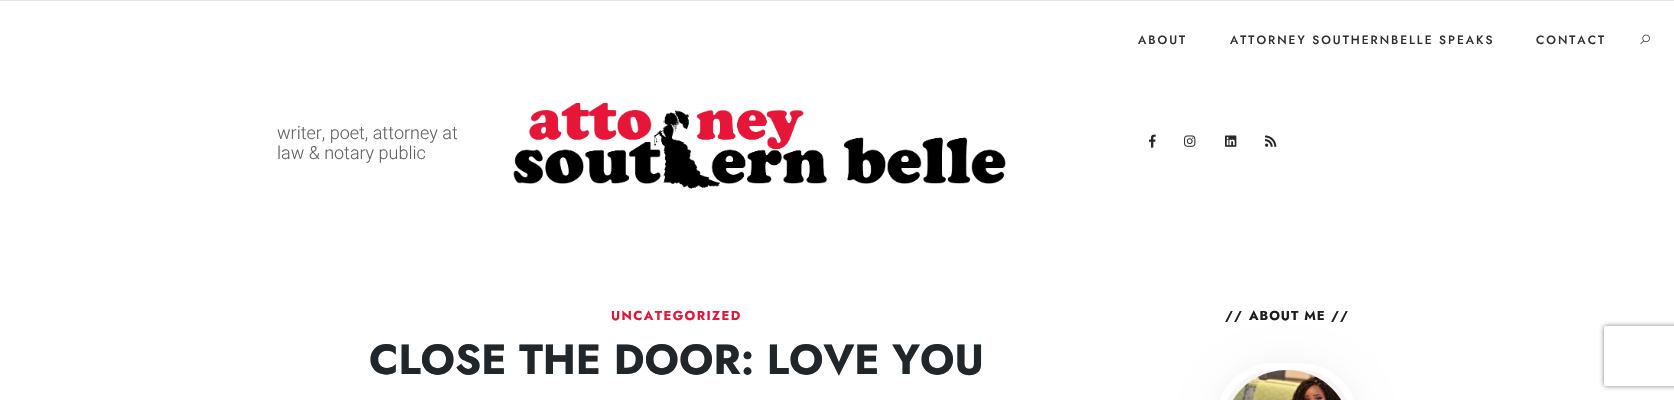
void draw(SkCanvas* canvas) {
    SkPaint paint;
    paint.setAntiAlias(true);
    auto spacedText = [&](const char* s, float x, float y, const SkFont& font, const SkPaint& ink, float letter, float word) {
        std::vector<SkGlyphID> glyphs(font.countText(s, strlen(s), SkTextEncoding::kUTF8));
        std::vector<float> xs(glyphs.size());
        font.textToGlyphs(s, strlen(s), SkTextEncoding::kUTF8, glyphs);
        font.getXPos(glyphs, xs, x);
        float extra = 0;
        for (size_t i = 0; i < glyphs.size(); i++) {
            xs[i] += extra;
            extra += letter + word * (glyphs[i] == font.unicharToGlyph(' '));
        }
        canvas->drawTextBlob(SkTextBlob::MakeFromPosHGlyphs(glyphs, xs, y, font), 0, 0, ink);
    };
    canvas->clear(0xFFFFFFFF);
    paint.setColor(0xFFE5E5E5);
    canvas->drawRect(SkRect::MakeXYWH(0, 0, 1674, 1), paint);
    SkFont font1(fontMgr->matchFamilyStyle("Jost", SkFontStyle(500, SkFontStyle::kNormal_Width, SkFontStyle::kUpright_Slant)), 12);
    font1.setSubpixel(true);
    paint.setColor(0xFF2C2E30);
    spacedText("ABOUT", 1138, 44, font1, paint, 2, 0);
    spacedText("ATTORNEY SOUTHERNBELLE SPEAKS", 1230, 44, font1, paint, 2, 0);
    spacedText("CONTACT", 1536, 44, font1, paint, 2, 0);
    canvas->drawImageRect(SkImages::DeferredFromEncodedData(SkData::MakeFromFileName("img1.png")), SkRect::MakeXYWH(1640, 34, 10, 11), SkSamplingOptions());
    SkFont font2(fontMgr->matchFamilyStyle("Roboto", SkFontStyle(300, SkFontStyle::kNormal_Width, SkFontStyle::kUpright_Slant)), 18);
    font2.setSubpixel(true);
    paint.setColor(0xFF616161);
    canvas->drawString("writer, poet, attorney at", 277, 139, font2, paint);
    canvas->drawString("law & notary public", 277, 159, font2, paint);
    canvas->drawImageRect(SkImages::DeferredFromEncodedData(SkData::MakeFromFileName("img2.png")), SkRect::MakeXYWH(513, 103, 493, 86), SkSamplingOptions());
    canvas->drawImageRect(SkImages::DeferredFromEncodedData(SkData::MakeFromFileName("img3.png")), SkRect::MakeXYWH(1149, 134, 7, 14), SkSamplingOptions());
    canvas->drawImageRect(SkImages::DeferredFromEncodedData(SkData::MakeFromFileName("img4.png")), SkRect::MakeXYWH(1184, 135, 12, 12), SkSamplingOptions());
    canvas->drawImageRect(SkImages::DeferredFromEncodedData(SkData::MakeFromFileName("img5.png")), SkRect::MakeXYWH(1225, 135, 12, 12), SkSamplingOptions());
    canvas->drawImageRect(SkImages::DeferredFromEncodedData(SkData::MakeFromFileName("img6.png")), SkRect::MakeXYWH(1265, 135, 12, 12), SkSamplingOptions());
    SkFont font3(fontMgr->matchFamilyStyle("Jost", SkFontStyle::Bold()), 13);
    font3.setSubpixel(true);
    paint.setColor(0xFFE61638);
    spacedText("UNCATEGORIZED", 611, 320, font3, paint, 1.4f, 0);
    SkFont font4(fontMgr->matchFamilyStyle("Jost", SkFontStyle::Bold()), 42);
    font4.setSubpixel(true);
    paint.setColor(0xFF202629);
    canvas->drawString("CLOSE THE DOOR: LOVE YOU", 369, 374, font4, paint);
    paint.setColor(0x14000000);
    paint.setMaskFilter(SkMaskFilter::MakeBlur(kNormal_SkBlurStyle, 18.5f));
    canvas->drawRoundRect(SkRect::MakeXYWH(1216, 367, 142, 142), 71, 71, paint);
    paint.setMaskFilter(nullptr);
    paint.setStyle(SkPaint::kStroke_Style);
    paint.setStrokeWidth(7);
    paint.setColor(0xFFFFFFFF);
    canvas->drawRoundRect(SkRect::MakeXYWH(1219.5f, 366.5f, 135, 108), 67.5f, 67.5f, paint);
    canvas->drawImageRect(SkImages::DeferredFromEncodedData(SkData::MakeFromFileName("img7.png")), SkRect::MakeXYWH(1233, 370, 108, 30), SkSamplingOptions());
    paint.setStyle(SkPaint::kFill_Style);
    paint.setColor(0xFF1C1D1F);
    spacedText("//", 1225, 320, font3, paint, 1, 0);
    spacedText("ABOUT ME", 1249, 320, font3, paint, 1, 0);
    spacedText("//", 1331, 320, font3, paint, 1, 0);
    canvas->save();
    canvas->clipPath(SkPathBuilder(SkPathFillType::kEvenOdd).moveTo(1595, 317).lineTo(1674, 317).lineTo(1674, 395).lineTo(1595, 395).close().moveTo(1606, 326).lineTo(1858, 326).cubicTo(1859, 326, 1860, 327, 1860, 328).lineTo(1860, 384).cubicTo(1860, 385, 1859, 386, 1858, 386).lineTo(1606, 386).cubicTo(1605, 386, 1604, 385, 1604, 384).lineTo(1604, 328).cubicTo(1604, 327, 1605, 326, 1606, 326).close().detach(), true);
    paint.setColor(0xFF808080);
    paint.setMaskFilter(SkMaskFilter::MakeBlur(kNormal_SkBlurStyle, 2.5f));
    canvas->drawRoundRect(SkRect::MakeXYWH(1604, 326, 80, 60), 2, 2, paint);
    paint.setMaskFilter(nullptr);
    canvas->restore();
}
